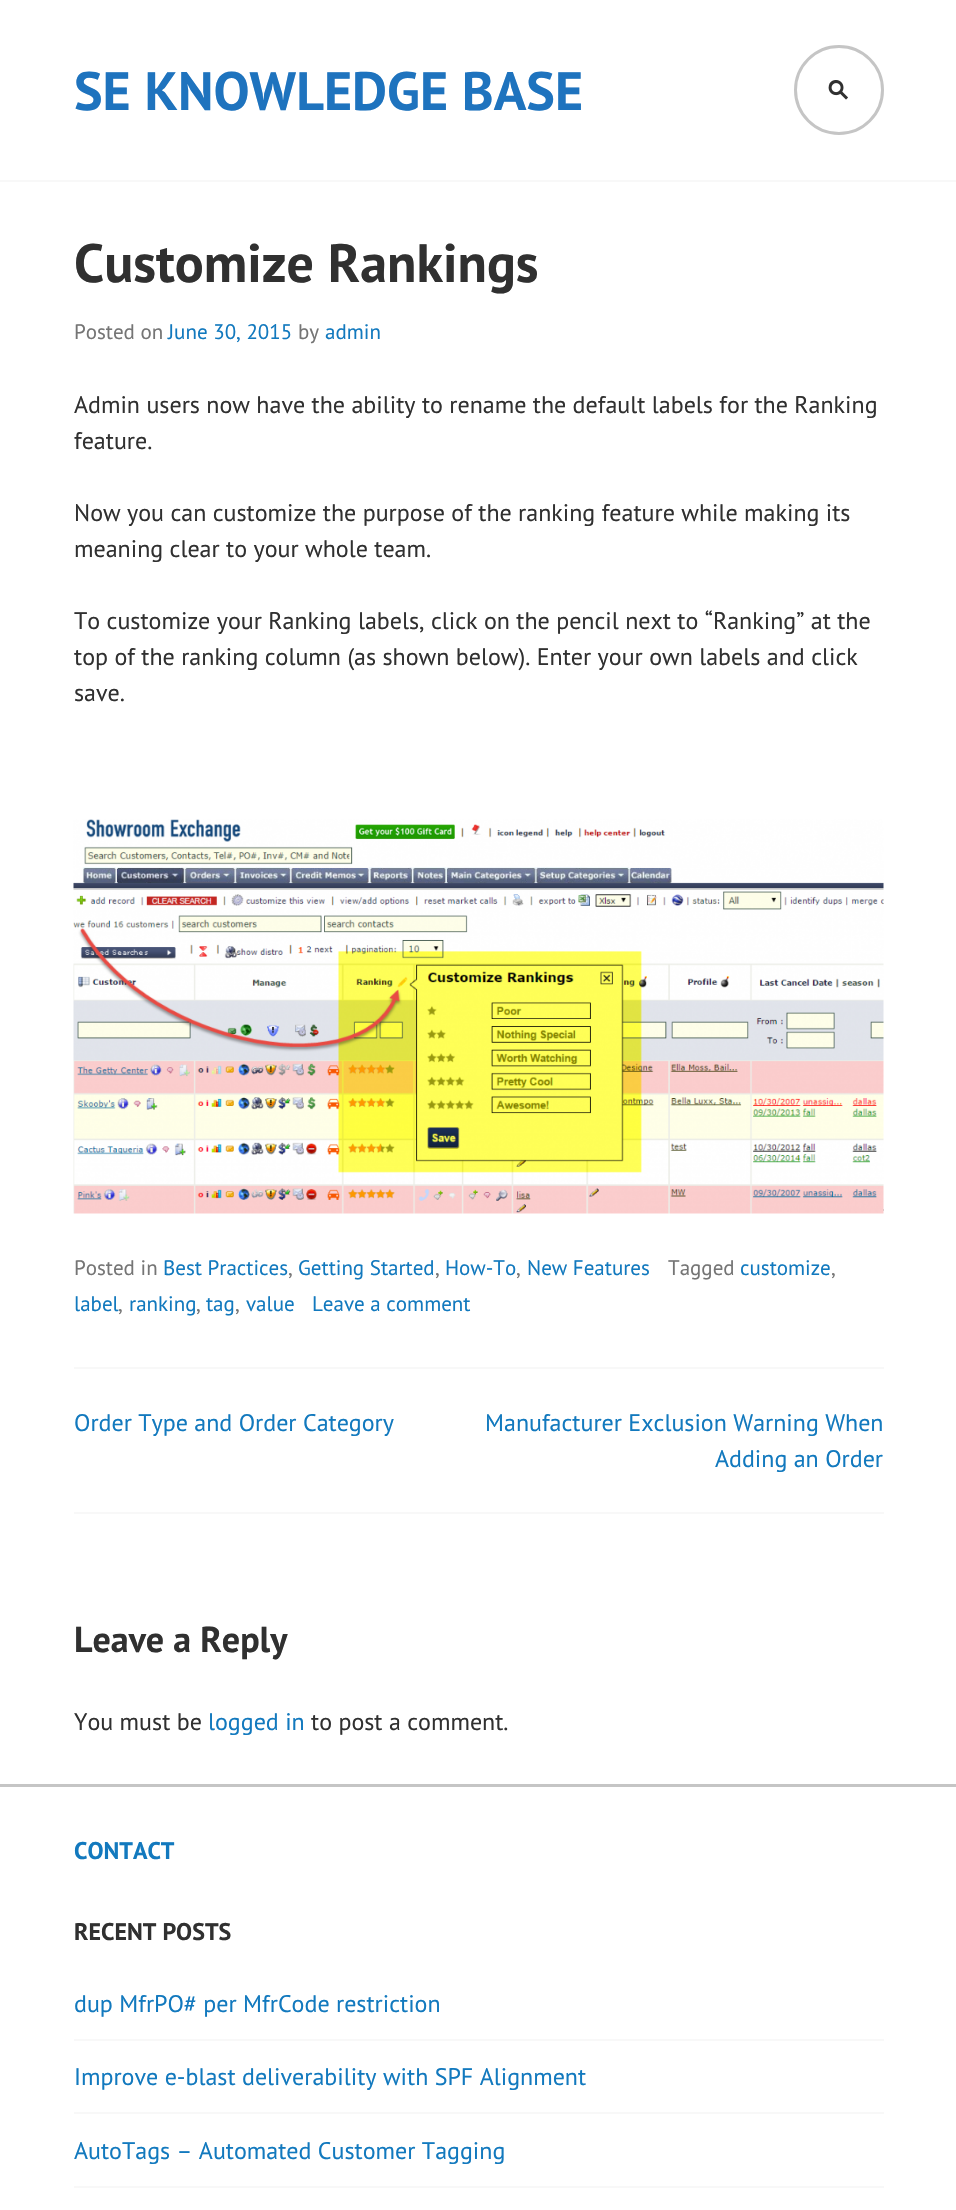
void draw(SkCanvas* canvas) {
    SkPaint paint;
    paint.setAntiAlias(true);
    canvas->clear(0xFFFFFFFF);
    paint.setColor(0xFFF8F8F8);
    canvas->drawRect(SkRect::MakeXYWH(0, 180, 956, 2), paint);
    SkFont font1(fontMgr->matchFamilyStyle("PT Sans", SkFontStyle::Bold()), 54);
    font1.setSubpixel(true);
    paint.setColor(0xFF1E73BE);
    canvas->drawString("SE KNOWLEDGE BASE", 74, 110, font1, paint);
    paint.setStyle(SkPaint::kStroke_Style);
    paint.setStrokeWidth(3);
    paint.setColor(0xFFC5C5C5);
    canvas->drawCircle(839, 90, 43.5f, paint);
    canvas->drawImageRect(SkImages::DeferredFromEncodedData(SkData::MakeFromFileName("img1.png")), SkRect::MakeXYWH(828, 80, 20, 20), SkSamplingOptions());
    paint.setStyle(SkPaint::kFill_Style);
    paint.setColor(0xFF303030);
    canvas->drawString("Customize Rankings", 74, 282, font1, paint);
    SkFont font2(fontMgr->matchFamilyStyle("PT Sans", SkFontStyle::Normal()), 21);
    font2.setSubpixel(true);
    paint.setColor(0xFF757575);
    canvas->drawString("Posted on", 74, 339, font2, paint);
    paint.setColor(0xFF1279BE);
    canvas->drawString("June 30, 2015", 168, 339, font2, paint);
    paint.setColor(0xFF757575);
    canvas->drawString("by", 298, 339, font2, paint);
    paint.setColor(0xFF1279BE);
    canvas->drawString("admin", 325, 339, font2, paint);
    SkFont font3(fontMgr->matchFamilyStyle("PT Sans", SkFontStyle::Normal()), 24);
    font3.setSubpixel(true);
    paint.setColor(0xFF303030);
    canvas->drawString("Admin users now have the ability to rename the default labels for the Ranking", 74, 413, font3, paint);
    canvas->drawString("feature.", 74, 449, font3, paint);
    canvas->drawString("Now you can customize the purpose of the ranking feature while making its", 74, 521, font3, paint);
    canvas->drawString("meaning clear to your whole team.", 74, 557, font3, paint);
    canvas->drawString("To customize your Ranking labels, click on the pencil next to “Ranking” at the", 74, 629, font3, paint);
    canvas->drawString("top of the ranking column (as shown below). Enter your own labels and click", 74, 665, font3, paint);
    canvas->drawString("save.", 74, 701, font3, paint);
    paint.setColor(0xFFC5C5C5);
    canvas->drawRect(SkRect::MakeXYWH(883, 1209, 1, 2), paint);
    canvas->drawImageRect(SkImages::DeferredFromEncodedData(SkData::MakeFromFileName("img2.png")), SkRect::MakeXYWH(73, 819, 811, 395), SkSamplingOptions());
    paint.setColor(0xFF757575);
    canvas->drawString("Posted in", 74, 1275, font2, paint);
    paint.setColor(0xFF1279BE);
    canvas->drawString("Best Practices", 163, 1275, font2, paint);
    paint.setColor(0xFF757575);
    canvas->drawString(",", 288, 1275, font2, paint);
    paint.setColor(0xFF1279BE);
    canvas->drawString("Getting Started", 298, 1275, font2, paint);
    paint.setColor(0xFF757575);
    canvas->drawString(",", 435, 1275, font2, paint);
    paint.setColor(0xFF1279BE);
    canvas->drawString("How-To", 445, 1275, font2, paint);
    paint.setColor(0xFF757575);
    canvas->drawString(",", 516, 1275, font2, paint);
    paint.setColor(0xFF1279BE);
    canvas->drawString("New Features", 527, 1275, font2, paint);
    paint.setColor(0xFF757575);
    canvas->drawString("Tagged", 668, 1275, font2, paint);
    paint.setColor(0xFF1279BE);
    canvas->drawString("customize", 740, 1275, font2, paint);
    paint.setColor(0xFF757575);
    canvas->drawString(",", 831, 1275, font2, paint);
    paint.setColor(0xFF1279BE);
    canvas->drawString("label", 74, 1311, font2, paint);
    paint.setColor(0xFF757575);
    canvas->drawString(",", 118, 1311, font2, paint);
    paint.setColor(0xFF1279BE);
    canvas->drawString("ranking", 129, 1311, font2, paint);
    paint.setColor(0xFF757575);
    canvas->drawString(",", 196, 1311, font2, paint);
    paint.setColor(0xFF1279BE);
    canvas->drawString("tag", 206, 1311, font2, paint);
    paint.setColor(0xFF757575);
    canvas->drawString(",", 235, 1311, font2, paint);
    paint.setColor(0xFF1279BE);
    canvas->drawString("value", 246, 1311, font2, paint);
    canvas->drawString("Leave a comment", 312, 1311, font2, paint);
    paint.setColor(0xFFF8F8F8);
    canvas->drawRect(SkRect::MakeXYWH(74, 1367, 810, 2), paint);
    canvas->drawRect(SkRect::MakeXYWH(74, 1512, 810, 2), paint);
    paint.setColor(0xFF1279BE);
    canvas->drawString("Order Type and Order Category", 74, 1431, font3, paint);
    canvas->drawString("Manufacturer Exclusion Warning When", 485, 1431, font3, paint);
    canvas->drawString("Adding an Order", 715, 1467, font3, paint);
    SkFont font4(fontMgr->matchFamilyStyle("PT Sans", SkFontStyle::Bold()), 36);
    font4.setSubpixel(true);
    paint.setColor(0xFF303030);
    canvas->drawString("Leave a Reply", 74, 1652, font4, paint);
    canvas->drawString("You must be", 74, 1730, font3, paint);
    paint.setColor(0xFF1279BE);
    canvas->drawString("logged in", 208, 1730, font3, paint);
    paint.setColor(0xFF303030);
    canvas->drawString("to post a comment.", 311, 1730, font3, paint);
    paint.setColor(0xFFC5C5C5);
    canvas->drawRect(SkRect::MakeXYWH(0, 1784, 956, 3), paint);
    SkFont font5(fontMgr->matchFamilyStyle("PT Sans", SkFontStyle::Bold()), 24);
    font5.setSubpixel(true);
    paint.setColor(0xFF1279BE);
    canvas->drawString("CONTACT", 74, 1859, font5, paint);
    paint.setColor(0xFF303030);
    canvas->drawString("RECENT POSTS", 74, 1940, font5, paint);
    paint.setColor(0xFF1279BE);
    canvas->drawString("dup MfrPO# per MfrCode restriction", 74, 2012, font3, paint);
    paint.setColor(0xFFF8F8F8);
    canvas->drawRect(SkRect::MakeXYWH(74, 2039, 810, 2), paint);
    paint.setColor(0xFF1279BE);
    canvas->drawString("Improve e-blast deliverability with SPF Alignment", 74, 2085, font3, paint);
    paint.setColor(0xFFF8F8F8);
    canvas->drawRect(SkRect::MakeXYWH(74, 2112, 810, 2), paint);
    paint.setColor(0xFF1279BE);
    canvas->drawString("AutoTags – Automated Customer Tagging", 74, 2159, font3, paint);
    paint.setColor(0xFFF8F8F8);
    canvas->drawRect(SkRect::MakeXYWH(74, 2186, 810, 2), paint);
}
